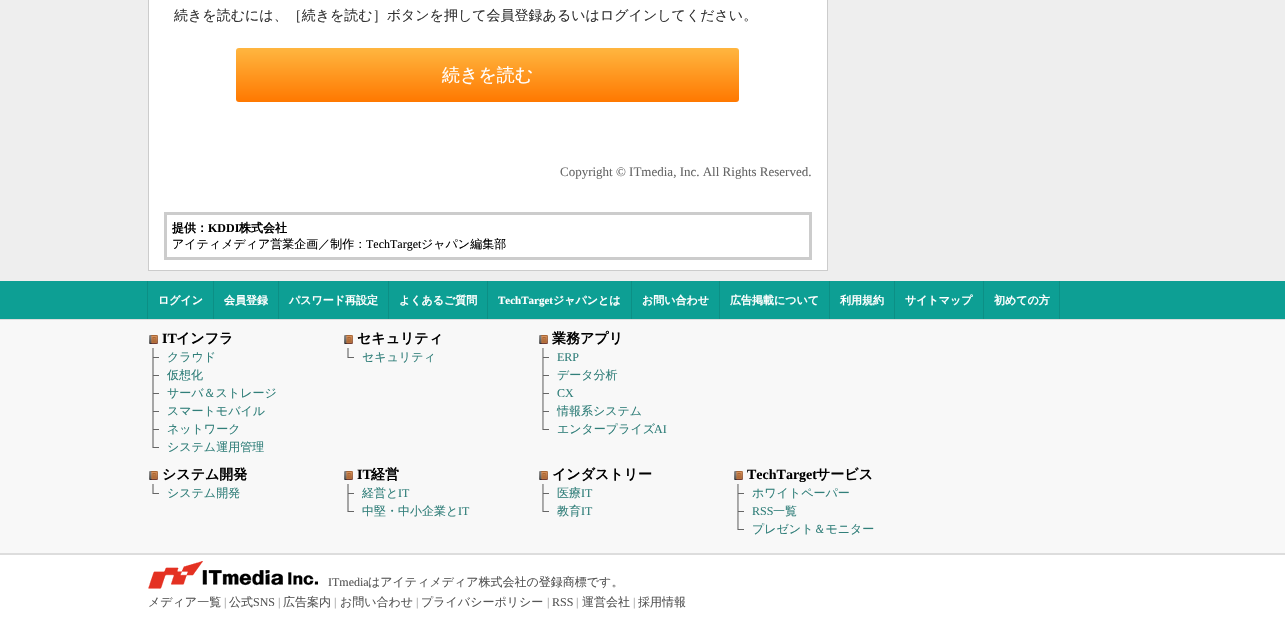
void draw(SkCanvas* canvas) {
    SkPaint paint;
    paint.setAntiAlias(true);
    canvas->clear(0xFFEEEEEE);
    paint.setColor(0xFFFFFFFF);
    canvas->drawRect(SkRect::MakeXYWH(148.5f, -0.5f, 679, 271), paint);
    paint.setStyle(SkPaint::kStroke_Style);
    paint.setStrokeWidth(1);
    paint.setColor(0xFFCCCCCC);
    canvas->drawRect(SkRect::MakeXYWH(148.5f, -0.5f, 679, 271), paint);
    SkFont font1(fontMgr->matchFamilyStyle("WenQuanYi Zen Hei", SkFontStyle(500, SkFontStyle::kNormal_Width, SkFontStyle::kUpright_Slant)), 14);
    font1.setSubpixel(true);
    paint.setStyle(SkPaint::kFill_Style);
    paint.setColor(0xFF333333);
    canvas->drawString("続きを読むには、［続きを読む］ボタンを押して会員登録あるいはログインしてください。", 174, 20, font1, paint);
    {
        const SkColor colors[] = {0xFFFFB640, 0xFFFF7800};
        const float stops[] = {0, 1};
        const SkPoint ends[] = {{488, 48}, {488, 102}};
        paint.setShader(SkGradientShader::MakeLinear(ends, colors, stops, 2, SkTileMode::kClamp));
        paint.setAlpha(255);
    }
    canvas->drawRoundRect(SkRect::MakeXYWH(236, 48, 503, 54), 3, 3, paint);
    SkFont font2(fontMgr->matchFamilyStyle("WenQuanYi Zen Hei", SkFontStyle(500, SkFontStyle::kNormal_Width, SkFontStyle::kUpright_Slant)), 18);
    font2.setSubpixel(true);
    paint.setShader(nullptr);
    paint.setColor(0xFFFFFFFF);
    canvas->drawString("続きを読む", 442, 81, font2, paint);
    SkFont font3(fontMgr->matchFamilyStyle("Liberation Serif", SkFontStyle::Normal()), 13);
    font3.setSubpixel(true);
    paint.setColor(0xFF666666);
    canvas->drawString("Copyright © ITmedia, Inc. All Rights Reserved.", 560, 176, font3, paint);
    paint.setStyle(SkPaint::kStroke_Style);
    paint.setStrokeWidth(3);
    paint.setColor(0xFFCCCCCC);
    canvas->drawRect(SkRect::MakeXYWH(165.5f, 213.5f, 645, 45), paint);
    SkFont font4(fontMgr->matchFamilyStyle("WenQuanYi Zen Hei", SkFontStyle::Bold()), 12);
    font4.setSubpixel(true);
    paint.setStyle(SkPaint::kFill_Style);
    paint.setColor(0xFF000000);
    canvas->drawString("提供：", 172, 232, font4, paint);
    SkFont font5(fontMgr->matchFamilyStyle("Liberation Serif", SkFontStyle::Bold()), 12);
    font5.setSubpixel(true);
    canvas->drawString("KDDI", 208, 232, font5, paint);
    canvas->drawString("株式会社", 239, 232, font4, paint);
    SkFont font6(fontMgr->matchFamilyStyle("WenQuanYi Zen Hei", SkFontStyle(500, SkFontStyle::kNormal_Width, SkFontStyle::kUpright_Slant)), 12);
    font6.setSubpixel(true);
    canvas->drawString("アイティメディア営業企画／制作：", 172, 248, font6, paint);
    SkFont font7(fontMgr->matchFamilyStyle("Liberation Serif", SkFontStyle::Normal()), 12);
    font7.setSubpixel(true);
    canvas->drawString("TechTarget", 366, 248, font7, paint);
    canvas->drawString("ジャパン編集部", 421, 248, font6, paint);
    paint.setColor(0xFF0D9F94);
    canvas->drawRect(SkRect::MakeXYWH(0, 281, 1285, 38), paint);
    paint.setColor(0xFF0C8F85);
    canvas->drawRect(SkRect::MakeXYWH(147, 281, 1, 38), paint);
    canvas->drawRect(SkRect::MakeXYWH(213, 281, 1, 38), paint);
    SkFont font8(fontMgr->matchFamilyStyle("WenQuanYi Zen Hei", SkFontStyle::Bold()), 11);
    font8.setSubpixel(true);
    paint.setColor(0xFFFFFFFF);
    canvas->drawString("ログイン", 158, 304, font8, paint);
    paint.setColor(0xFF0C8F85);
    canvas->drawRect(SkRect::MakeXYWH(278, 281, 1, 38), paint);
    paint.setColor(0xFFFFFFFF);
    canvas->drawString("会員登録", 224, 304, font8, paint);
    paint.setColor(0xFF0C8F85);
    canvas->drawRect(SkRect::MakeXYWH(388, 281, 1, 38), paint);
    paint.setColor(0xFFFFFFFF);
    canvas->drawString("パスワード再設定", 289, 304, font8, paint);
    paint.setColor(0xFF0C8F85);
    canvas->drawRect(SkRect::MakeXYWH(487, 281, 1, 38), paint);
    paint.setColor(0xFFFFFFFF);
    canvas->drawString("よくあるご質問", 399, 304, font8, paint);
    paint.setColor(0xFF0C8F85);
    canvas->drawRect(SkRect::MakeXYWH(631, 281, 1, 38), paint);
    SkFont font9(fontMgr->matchFamilyStyle("Liberation Serif", SkFontStyle::Bold()), 11);
    font9.setSubpixel(true);
    paint.setColor(0xFFFFFFFF);
    canvas->drawString("TechTarget", 498, 304, font9, paint);
    canvas->drawString("ジャパンとは", 553, 304, font8, paint);
    paint.setColor(0xFF0C8F85);
    canvas->drawRect(SkRect::MakeXYWH(719, 281, 1, 38), paint);
    paint.setColor(0xFFFFFFFF);
    canvas->drawString("お問い合わせ", 642, 304, font8, paint);
    paint.setColor(0xFF0C8F85);
    canvas->drawRect(SkRect::MakeXYWH(829, 281, 1, 38), paint);
    paint.setColor(0xFFFFFFFF);
    canvas->drawString("広告掲載について", 730, 304, font8, paint);
    paint.setColor(0xFF0C8F85);
    canvas->drawRect(SkRect::MakeXYWH(894, 281, 1, 38), paint);
    paint.setColor(0xFFFFFFFF);
    canvas->drawString("利用規約", 840, 304, font8, paint);
    paint.setColor(0xFF0C8F85);
    canvas->drawRect(SkRect::MakeXYWH(983, 281, 1, 38), paint);
    paint.setColor(0xFFFFFFFF);
    canvas->drawString("サイトマップ", 905, 304, font8, paint);
    paint.setColor(0xFF0C8F85);
    canvas->drawRect(SkRect::MakeXYWH(1059, 281, 1, 38), paint);
    paint.setColor(0xFFFFFFFF);
    canvas->drawString("初めての方", 994, 304, font8, paint);
    paint.setColor(0xFFF8F8F8);
    canvas->drawRect(SkRect::MakeXYWH(0, 320, 1285, 233), paint);
    paint.setColor(0xFFDDDDDD);
    canvas->drawRect(SkRect::MakeXYWH(0, 319, 1285, 1), paint);
    canvas->drawRect(SkRect::MakeXYWH(0, 553, 1285, 2), paint);
    canvas->drawImageRect(SkImages::DeferredFromEncodedData(SkData::MakeFromFileName("img1.png")), SkRect::MakeXYWH(149, 335, 9, 9), SkSamplingOptions());
    SkFont font10(fontMgr->matchFamilyStyle("Liberation Serif", SkFontStyle::Bold()), 14);
    font10.setSubpixel(true);
    paint.setColor(0xFF000000);
    canvas->drawString("IT", 162, 343, font10, paint);
    SkFont font11(fontMgr->matchFamilyStyle("WenQuanYi Zen Hei", SkFontStyle::Bold()), 14);
    font11.setSubpixel(true);
    canvas->drawString("インフラ", 176, 343, font11, paint);
    canvas->drawImageRect(SkImages::DeferredFromEncodedData(SkData::MakeFromFileName("img2.png")), SkRect::MakeXYWH(152, 348, 7, 18), SkSamplingOptions());
    paint.setColor(0xFF317F7A);
    canvas->drawString("クラウド", 167, 361, font6, paint);
    canvas->drawImageRect(SkImages::DeferredFromEncodedData(SkData::MakeFromFileName("img2.png")), SkRect::MakeXYWH(152, 366, 7, 18), SkSamplingOptions());
    canvas->drawString("仮想化", 167, 379, font6, paint);
    canvas->drawImageRect(SkImages::DeferredFromEncodedData(SkData::MakeFromFileName("img2.png")), SkRect::MakeXYWH(152, 384, 7, 18), SkSamplingOptions());
    canvas->drawString("サーバ＆ストレージ", 167, 397, font6, paint);
    canvas->drawImageRect(SkImages::DeferredFromEncodedData(SkData::MakeFromFileName("img2.png")), SkRect::MakeXYWH(152, 402, 7, 18), SkSamplingOptions());
    canvas->drawString("スマートモバイル", 167, 415, font6, paint);
    canvas->drawImageRect(SkImages::DeferredFromEncodedData(SkData::MakeFromFileName("img2.png")), SkRect::MakeXYWH(152, 420, 7, 18), SkSamplingOptions());
    canvas->drawString("ネットワーク", 167, 433, font6, paint);
    canvas->drawImageRect(SkImages::DeferredFromEncodedData(SkData::MakeFromFileName("img3.png")), SkRect::MakeXYWH(152, 438, 7, 10), SkSamplingOptions());
    canvas->drawString("システム運用管理", 167, 451, font6, paint);
    canvas->drawImageRect(SkImages::DeferredFromEncodedData(SkData::MakeFromFileName("img1.png")), SkRect::MakeXYWH(344, 335, 9, 9), SkSamplingOptions());
    paint.setColor(0xFF000000);
    canvas->drawString("セキュリティ", 357, 343, font11, paint);
    canvas->drawImageRect(SkImages::DeferredFromEncodedData(SkData::MakeFromFileName("img3.png")), SkRect::MakeXYWH(347, 348, 7, 10), SkSamplingOptions());
    paint.setColor(0xFF317F7A);
    canvas->drawString("セキュリティ", 362, 361, font6, paint);
    canvas->drawImageRect(SkImages::DeferredFromEncodedData(SkData::MakeFromFileName("img4.png")), SkRect::MakeXYWH(539, 335, 9, 9), SkSamplingOptions());
    paint.setColor(0xFF000000);
    canvas->drawString("業務アプリ", 552, 343, font11, paint);
    canvas->drawImageRect(SkImages::DeferredFromEncodedData(SkData::MakeFromFileName("img5.png")), SkRect::MakeXYWH(542, 348, 7, 18), SkSamplingOptions());
    paint.setColor(0xFF317F7A);
    canvas->drawString("ERP", 557, 361, font7, paint);
    canvas->drawImageRect(SkImages::DeferredFromEncodedData(SkData::MakeFromFileName("img5.png")), SkRect::MakeXYWH(542, 366, 7, 18), SkSamplingOptions());
    canvas->drawString("データ分析", 557, 379, font6, paint);
    canvas->drawImageRect(SkImages::DeferredFromEncodedData(SkData::MakeFromFileName("img5.png")), SkRect::MakeXYWH(542, 384, 7, 18), SkSamplingOptions());
    canvas->drawString("CX", 557, 397, font7, paint);
    canvas->drawImageRect(SkImages::DeferredFromEncodedData(SkData::MakeFromFileName("img5.png")), SkRect::MakeXYWH(542, 402, 7, 18), SkSamplingOptions());
    canvas->drawString("情報系システム", 557, 415, font6, paint);
    canvas->drawImageRect(SkImages::DeferredFromEncodedData(SkData::MakeFromFileName("img6.png")), SkRect::MakeXYWH(542, 420, 7, 10), SkSamplingOptions());
    canvas->drawString("エンタープライズ", 557, 433, font6, paint);
    canvas->drawString("AI", 654, 433, font7, paint);
    canvas->drawImageRect(SkImages::DeferredFromEncodedData(SkData::MakeFromFileName("img1.png")), SkRect::MakeXYWH(149, 471, 9, 9), SkSamplingOptions());
    paint.setColor(0xFF000000);
    canvas->drawString("システム開発", 162, 479, font11, paint);
    canvas->drawImageRect(SkImages::DeferredFromEncodedData(SkData::MakeFromFileName("img3.png")), SkRect::MakeXYWH(152, 484, 7, 10), SkSamplingOptions());
    paint.setColor(0xFF317F7A);
    canvas->drawString("システム開発", 167, 497, font6, paint);
    canvas->drawImageRect(SkImages::DeferredFromEncodedData(SkData::MakeFromFileName("img1.png")), SkRect::MakeXYWH(344, 471, 9, 9), SkSamplingOptions());
    paint.setColor(0xFF000000);
    canvas->drawString("IT", 357, 479, font10, paint);
    canvas->drawString("経営", 371, 479, font11, paint);
    canvas->drawImageRect(SkImages::DeferredFromEncodedData(SkData::MakeFromFileName("img2.png")), SkRect::MakeXYWH(347, 484, 7, 18), SkSamplingOptions());
    paint.setColor(0xFF317F7A);
    canvas->drawString("経営と", 362, 497, font6, paint);
    canvas->drawString("IT", 398, 497, font7, paint);
    canvas->drawImageRect(SkImages::DeferredFromEncodedData(SkData::MakeFromFileName("img3.png")), SkRect::MakeXYWH(347, 502, 7, 10), SkSamplingOptions());
    canvas->drawString("中堅・中小企業と", 362, 515, font6, paint);
    canvas->drawString("IT", 458, 515, font7, paint);
    canvas->drawImageRect(SkImages::DeferredFromEncodedData(SkData::MakeFromFileName("img4.png")), SkRect::MakeXYWH(539, 471, 9, 9), SkSamplingOptions());
    paint.setColor(0xFF000000);
    canvas->drawString("インダストリー", 552, 479, font11, paint);
    canvas->drawImageRect(SkImages::DeferredFromEncodedData(SkData::MakeFromFileName("img5.png")), SkRect::MakeXYWH(542, 484, 7, 18), SkSamplingOptions());
    paint.setColor(0xFF317F7A);
    canvas->drawString("医療", 557, 497, font6, paint);
    canvas->drawString("IT", 581, 497, font7, paint);
    canvas->drawImageRect(SkImages::DeferredFromEncodedData(SkData::MakeFromFileName("img6.png")), SkRect::MakeXYWH(542, 502, 7, 10), SkSamplingOptions());
    canvas->drawString("教育", 557, 515, font6, paint);
    canvas->drawString("IT", 581, 515, font7, paint);
    canvas->drawImageRect(SkImages::DeferredFromEncodedData(SkData::MakeFromFileName("img4.png")), SkRect::MakeXYWH(734, 471, 9, 9), SkSamplingOptions());
    paint.setColor(0xFF000000);
    canvas->drawString("TechTarget", 747, 479, font10, paint);
    canvas->drawString("サービス", 816, 479, font11, paint);
    canvas->drawImageRect(SkImages::DeferredFromEncodedData(SkData::MakeFromFileName("img5.png")), SkRect::MakeXYWH(737, 484, 7, 18), SkSamplingOptions());
    paint.setColor(0xFF317F7A);
    canvas->drawString("ホワイトペーパー", 752, 497, font6, paint);
    canvas->drawImageRect(SkImages::DeferredFromEncodedData(SkData::MakeFromFileName("img5.png")), SkRect::MakeXYWH(737, 502, 7, 18), SkSamplingOptions());
    canvas->drawString("RSS", 752, 515, font7, paint);
    canvas->drawString("一覧", 773, 515, font6, paint);
    canvas->drawImageRect(SkImages::DeferredFromEncodedData(SkData::MakeFromFileName("img6.png")), SkRect::MakeXYWH(737, 520, 7, 10), SkSamplingOptions());
    canvas->drawString("プレゼント＆モニター", 752, 533, font6, paint);
    paint.setColor(0xFFFFFFFF);
    canvas->drawRect(SkRect::MakeXYWH(0, 555, 1285, 63), paint);
    canvas->drawImageRect(SkImages::DeferredFromEncodedData(SkData::MakeFromFileName("img7.png")), SkRect::MakeXYWH(148, 561, 170, 28), SkSamplingOptions());
    paint.setColor(0xFF555555);
    canvas->drawString("ITmedia", 328, 586, font7, paint);
    canvas->drawString("はアイティメディア株式会社の登録商標です。", 368, 586, font6, paint);
    canvas->drawString("メディア一覧", 148, 606, font6, paint);
    paint.setColor(0xFF999999);
    canvas->drawString("|", 224, 606, font7, paint);
    paint.setColor(0xFF555555);
    canvas->drawString("公式", 229, 606, font6, paint);
    canvas->drawString("SNS", 253, 606, font7, paint);
    paint.setColor(0xFF999999);
    canvas->drawString("|", 278, 606, font7, paint);
    paint.setColor(0xFF555555);
    canvas->drawString("広告案内", 283, 606, font6, paint);
    paint.setColor(0xFF999999);
    canvas->drawString("|", 334, 606, font7, paint);
    paint.setColor(0xFF555555);
    canvas->drawString("お問い合わせ", 340, 606, font6, paint);
    paint.setColor(0xFF999999);
    canvas->drawString("|", 416, 606, font7, paint);
    paint.setColor(0xFF555555);
    canvas->drawString("プライバシーポリシー", 421, 606, font6, paint);
    paint.setColor(0xFF999999);
    canvas->drawString("|", 547, 606, font7, paint);
    paint.setColor(0xFF555555);
    canvas->drawString("RSS", 552, 606, font7, paint);
    paint.setColor(0xFF999999);
    canvas->drawString("|", 576, 606, font7, paint);
    paint.setColor(0xFF555555);
    canvas->drawString("運営会社", 582, 606, font6, paint);
    paint.setColor(0xFF999999);
    canvas->drawString("|", 633, 606, font7, paint);
    paint.setColor(0xFF555555);
    canvas->drawString("採用情報", 638, 606, font6, paint);
}
